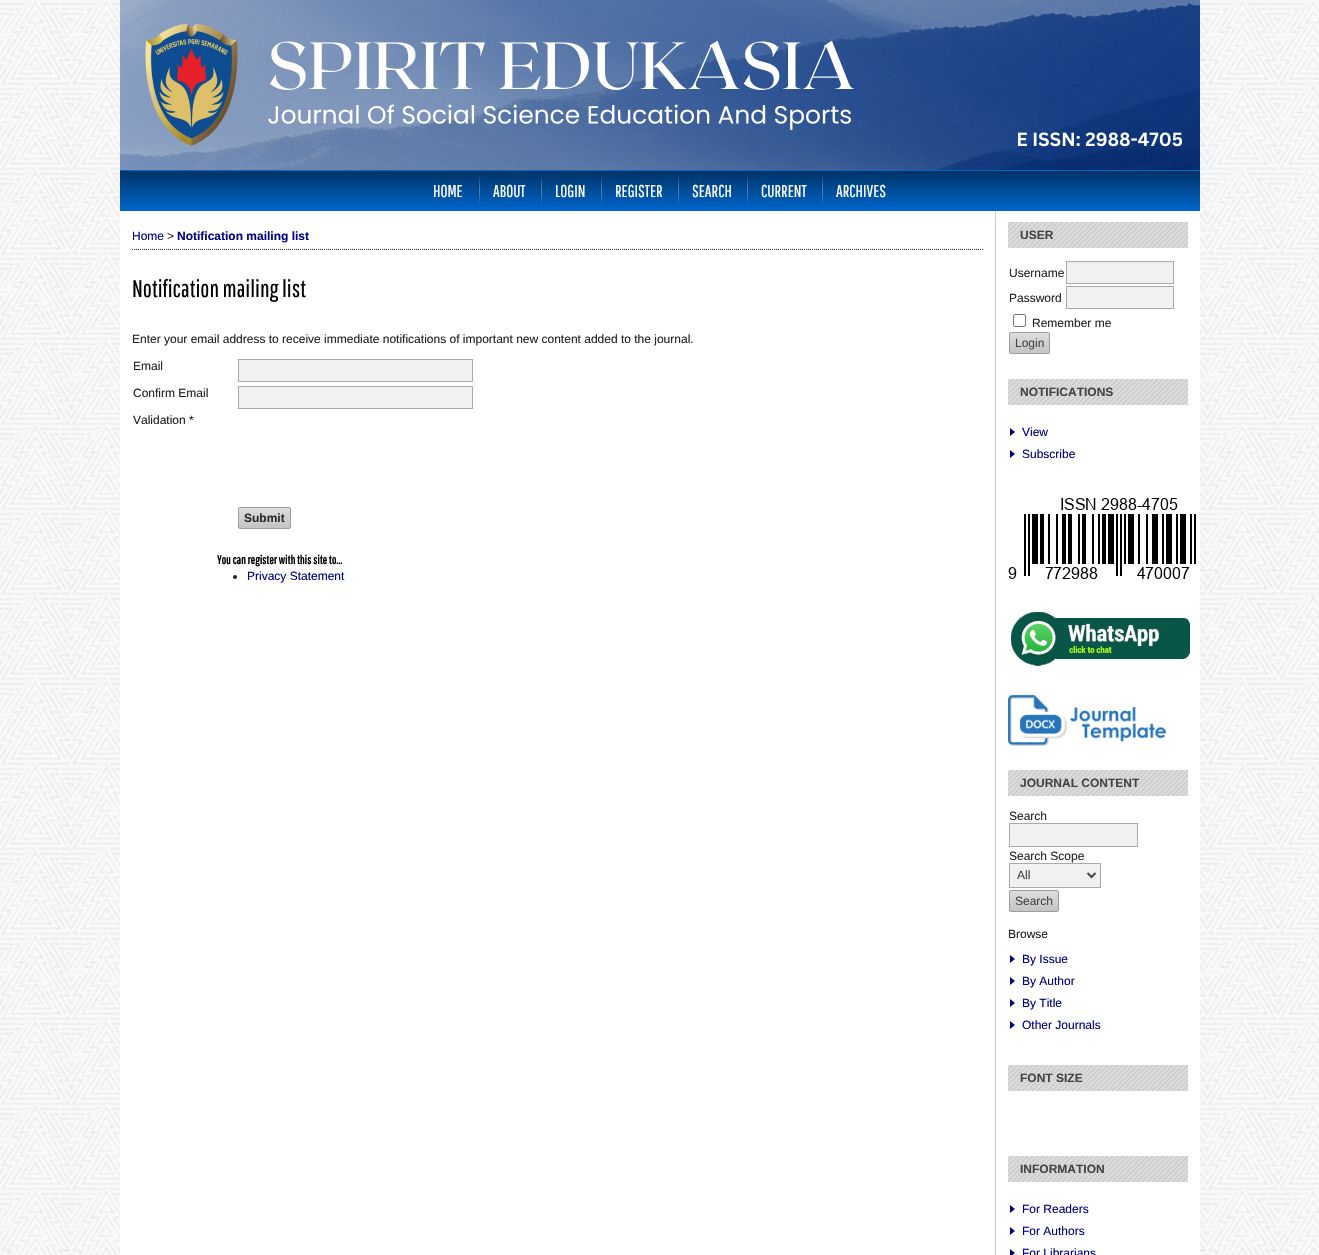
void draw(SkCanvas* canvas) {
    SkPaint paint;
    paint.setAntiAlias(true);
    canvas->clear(0xFFFFFFFF);
    canvas->drawImageRect(SkImages::DeferredFromEncodedData(SkData::MakeFromFileName("img1.png")), SkRect::MakeXYWH(0, 0, 1319, 1255), SkSamplingOptions());
    canvas->drawImageRect(SkImages::DeferredFromEncodedData(SkData::MakeFromFileName("img2.png")), SkRect::MakeXYWH(120, 0, 1080, 170), SkSamplingOptions());
    paint.setColor(0xFFFFFFFF);
    canvas->drawRect(SkRect::MakeXYWH(120, 211, 1080, 1044), paint);
    {
        const SkColor colors[] = {0xFF003366, 0xFF0066CC};
        const float stops[] = {0, 1};
        const SkPoint ends[] = {{660, 131}, {660, 171}};
        paint.setShader(SkGradientShader::MakeLinear(ends, colors, stops, 2, SkTileMode::kClamp));
        paint.setAlpha(255);
    }
    canvas->drawRect(SkRect::MakeXYWH(120, 170, 1080, 1), paint);
    paint.setShader(nullptr);
    paint.setColor(0xFFCCCCCC);
    canvas->drawRect(SkRect::MakeXYWH(995, 210, 1, 1045), paint);
    {
        const SkColor colors[] = {0xFF003366, 0xFF0066CC};
        const float stops[] = {0, 1};
        const SkPoint ends[] = {{660, 171}, {660, 211}};
        paint.setShader(SkGradientShader::MakeLinear(ends, colors, stops, 2, SkTileMode::kClamp));
        paint.setAlpha(255);
    }
    canvas->drawRect(SkRect::MakeXYWH(120, 171, 1080, 40), paint);
    SkFont font1(fontMgr->matchFamilyStyle("Pathway Gothic One", SkFontStyle::Normal()), 17);
    font1.setSubpixel(true);
    paint.setShader(nullptr);
    paint.setColor(0xFFFFFFFF);
    canvas->drawString("HOME", 433, 197, font1, paint);
    {
        const SkColor colors[] = {0x00000000, 0x26000000, 0x00000000};
        const float stops[] = {0, 0.5f, 1};
        const SkPoint ends[] = {{479, 175}, {479, 205}};
        paint.setShader(SkGradientShader::MakeLinear(ends, colors, stops, 3, SkTileMode::kClamp));
        paint.setAlpha(255);
    }
    canvas->drawRect(SkRect::MakeXYWH(478, 175, 1, 30), paint);
    {
        const SkColor colors[] = {0x00FFFFFF, 0x59FFFFFF, 0x00FFFFFF};
        const float stops[] = {0, 0.5f, 1};
        const SkPoint ends[] = {{480, 175}, {480, 205}};
        paint.setShader(SkGradientShader::MakeLinear(ends, colors, stops, 3, SkTileMode::kClamp));
        paint.setAlpha(255);
    }
    canvas->drawRect(SkRect::MakeXYWH(479, 175, 1, 30), paint);
    paint.setShader(nullptr);
    paint.setColor(0xFFFFFFFF);
    canvas->drawString("ABOUT", 493, 197, font1, paint);
    {
        const SkColor colors[] = {0x00000000, 0x26000000, 0x00000000};
        const float stops[] = {0, 0.5f, 1};
        const SkPoint ends[] = {{541, 175}, {541, 205}};
        paint.setShader(SkGradientShader::MakeLinear(ends, colors, stops, 3, SkTileMode::kClamp));
        paint.setAlpha(255);
    }
    canvas->drawRect(SkRect::MakeXYWH(540, 175, 1, 30), paint);
    {
        const SkColor colors[] = {0x00FFFFFF, 0x59FFFFFF, 0x00FFFFFF};
        const float stops[] = {0, 0.5f, 1};
        const SkPoint ends[] = {{542, 175}, {542, 205}};
        paint.setShader(SkGradientShader::MakeLinear(ends, colors, stops, 3, SkTileMode::kClamp));
        paint.setAlpha(255);
    }
    canvas->drawRect(SkRect::MakeXYWH(541, 175, 1, 30), paint);
    paint.setShader(nullptr);
    paint.setColor(0xFFFFFFFF);
    canvas->drawString("LOGIN", 555, 197, font1, paint);
    {
        const SkColor colors[] = {0x00000000, 0x26000000, 0x00000000};
        const float stops[] = {0, 0.5f, 1};
        const SkPoint ends[] = {{601, 175}, {601, 205}};
        paint.setShader(SkGradientShader::MakeLinear(ends, colors, stops, 3, SkTileMode::kClamp));
        paint.setAlpha(255);
    }
    canvas->drawRect(SkRect::MakeXYWH(600, 175, 1, 30), paint);
    {
        const SkColor colors[] = {0x00FFFFFF, 0x59FFFFFF, 0x00FFFFFF};
        const float stops[] = {0, 0.5f, 1};
        const SkPoint ends[] = {{602, 175}, {602, 205}};
        paint.setShader(SkGradientShader::MakeLinear(ends, colors, stops, 3, SkTileMode::kClamp));
        paint.setAlpha(255);
    }
    canvas->drawRect(SkRect::MakeXYWH(601, 175, 1, 30), paint);
    paint.setShader(nullptr);
    paint.setColor(0xFFFFFFFF);
    canvas->drawString("REGISTER", 615, 197, font1, paint);
    {
        const SkColor colors[] = {0x00000000, 0x26000000, 0x00000000};
        const float stops[] = {0, 0.5f, 1};
        const SkPoint ends[] = {{678, 175}, {678, 205}};
        paint.setShader(SkGradientShader::MakeLinear(ends, colors, stops, 3, SkTileMode::kClamp));
        paint.setAlpha(255);
    }
    canvas->drawRect(SkRect::MakeXYWH(677, 175, 1, 30), paint);
    {
        const SkColor colors[] = {0x00FFFFFF, 0x59FFFFFF, 0x00FFFFFF};
        const float stops[] = {0, 0.5f, 1};
        const SkPoint ends[] = {{679, 175}, {679, 205}};
        paint.setShader(SkGradientShader::MakeLinear(ends, colors, stops, 3, SkTileMode::kClamp));
        paint.setAlpha(255);
    }
    canvas->drawRect(SkRect::MakeXYWH(678, 175, 1, 30), paint);
    paint.setShader(nullptr);
    paint.setColor(0xFFFFFFFF);
    canvas->drawString("SEARCH", 692, 197, font1, paint);
    {
        const SkColor colors[] = {0x00000000, 0x26000000, 0x00000000};
        const float stops[] = {0, 0.5f, 1};
        const SkPoint ends[] = {{747, 175}, {747, 205}};
        paint.setShader(SkGradientShader::MakeLinear(ends, colors, stops, 3, SkTileMode::kClamp));
        paint.setAlpha(255);
    }
    canvas->drawRect(SkRect::MakeXYWH(746, 175, 1, 30), paint);
    {
        const SkColor colors[] = {0x00FFFFFF, 0x59FFFFFF, 0x00FFFFFF};
        const float stops[] = {0, 0.5f, 1};
        const SkPoint ends[] = {{748, 175}, {748, 205}};
        paint.setShader(SkGradientShader::MakeLinear(ends, colors, stops, 3, SkTileMode::kClamp));
        paint.setAlpha(255);
    }
    canvas->drawRect(SkRect::MakeXYWH(747, 175, 1, 30), paint);
    paint.setShader(nullptr);
    paint.setColor(0xFFFFFFFF);
    canvas->drawString("CURRENT", 761, 197, font1, paint);
    {
        const SkColor colors[] = {0x00000000, 0x26000000, 0x00000000};
        const float stops[] = {0, 0.5f, 1};
        const SkPoint ends[] = {{822, 175}, {822, 205}};
        paint.setShader(SkGradientShader::MakeLinear(ends, colors, stops, 3, SkTileMode::kClamp));
        paint.setAlpha(255);
    }
    canvas->drawRect(SkRect::MakeXYWH(821, 175, 1, 30), paint);
    {
        const SkColor colors[] = {0x00FFFFFF, 0x59FFFFFF, 0x00FFFFFF};
        const float stops[] = {0, 0.5f, 1};
        const SkPoint ends[] = {{823, 175}, {823, 205}};
        paint.setShader(SkGradientShader::MakeLinear(ends, colors, stops, 3, SkTileMode::kClamp));
        paint.setAlpha(255);
    }
    canvas->drawRect(SkRect::MakeXYWH(822, 175, 1, 30), paint);
    paint.setShader(nullptr);
    paint.setColor(0xFFFFFFFF);
    canvas->drawString("ARCHIVES", 836, 197, font1, paint);
    paint.setStyle(SkPaint::kStroke_Style);
    paint.setStrokeWidth(1);
    paint.setColor(0xFF333333);
    paint.setPathEffect(SkDashPathEffect::Make({{1, 1}}, 0));
    canvas->drawPath(SkPathBuilder().moveTo(132, 249.5f).lineTo(983, 249.5f).detach(), paint);
    paint.setPathEffect(nullptr);
    SkFont font2(fontMgr->matchFamilyStyle("Liberation Sans", SkFontStyle::Normal()), 12);
    font2.setSubpixel(true);
    paint.setStyle(SkPaint::kFill_Style);
    paint.setColor(0xFF000080);
    canvas->drawString("Home", 132, 240, font2, paint);
    paint.setColor(0xFF222222);
    canvas->drawString(">", 167, 240, font2, paint);
    SkFont font3(fontMgr->matchFamilyStyle("Liberation Sans", SkFontStyle::Bold()), 12);
    font3.setSubpixel(true);
    paint.setColor(0xFF000080);
    canvas->drawString("Notification mailing list", 177, 240, font3, paint);
    SkFont font4(fontMgr->matchFamilyStyle("Pathway Gothic One", SkFontStyle::Normal()), 24);
    font4.setSubpixel(true);
    paint.setColor(0xFF000000);
    canvas->drawString("Notification mailing list", 132, 297, font4, paint);
    paint.setColor(0xFF222222);
    canvas->drawString("Enter your email address to receive immediate notifications of important new content added to the journal.", 132, 343, font2, paint);
    canvas->drawString("Email", 133, 370, font2, paint);
    paint.setColor(0xFFF1F1F1);
    canvas->drawRect(SkRect::MakeXYWH(238.5f, 359.5f, 234, 22), paint);
    paint.setStyle(SkPaint::kStroke_Style);
    paint.setColor(0xFFAAAAAA);
    canvas->drawRect(SkRect::MakeXYWH(238.5f, 359.5f, 234, 22), paint);
    paint.setStyle(SkPaint::kFill_Style);
    paint.setColor(0xFF222222);
    canvas->drawString("Confirm Email", 133, 397, font2, paint);
    paint.setColor(0xFFF1F1F1);
    canvas->drawRect(SkRect::MakeXYWH(238.5f, 386.5f, 234, 22), paint);
    paint.setStyle(SkPaint::kStroke_Style);
    paint.setColor(0xFFAAAAAA);
    canvas->drawRect(SkRect::MakeXYWH(238.5f, 386.5f, 234, 22), paint);
    paint.setStyle(SkPaint::kFill_Style);
    paint.setColor(0xFF222222);
    canvas->drawString("Validation *", 133, 424, font2, paint);
    canvas->save();
    canvas->clipPath(SkPathBuilder().moveTo(240, 507).lineTo(289, 507).cubicTo(290, 507, 291, 508, 291, 509).lineTo(291, 527).cubicTo(291, 528, 290, 529, 289, 529).lineTo(240, 529).cubicTo(239, 529, 238, 528, 238, 527).lineTo(238, 509).cubicTo(238, 508, 239, 507, 240, 507).close().detach(), true);
    {
        const SkColor colors[] = {0xFFDDDDDD, 0xFFC4C4C4};
        const float stops[] = {0, 1};
        const SkPoint ends[] = {{265, 508}, {265, 528}};
        paint.setShader(SkGradientShader::MakeLinear(ends, colors, stops, 2, SkTileMode::kClamp));
        paint.setAlpha(255);
    }
    canvas->drawRect(SkRect::MakeXYWH(238, 508, 53, 20), paint);
    canvas->restore();
    paint.setStyle(SkPaint::kStroke_Style);
    paint.setShader(nullptr);
    paint.setColor(0xFF9D9D9D);
    canvas->drawRoundRect(SkRect::MakeXYWH(238.5f, 507.5f, 52, 21), 1.5f, 1.5f, paint);
    paint.setStyle(SkPaint::kFill_Style);
    paint.setColor(0xFF2B2B2B);
    canvas->drawString("Submit", 244, 522, font3, paint);
    SkFont font5(fontMgr->matchFamilyStyle("Pathway Gothic One", SkFontStyle::Bold()), 12);
    font5.setSubpixel(true);
    paint.setColor(0xFF000000);
    canvas->drawString("You can register with this site to...", 217, 564, font5, paint);
    paint.setColor(0xFF222222);
    canvas->drawCircle(235, 577, 2, paint);
    paint.setColor(0xFF000080);
    canvas->drawString("Privacy Statement", 247, 580, font2, paint);
    paint.setColor(0xFFDADADA);
    canvas->drawRect(SkRect::MakeXYWH(1008, 222, 180, 26), paint);
    canvas->drawImageRect(SkImages::DeferredFromEncodedData(SkData::MakeFromFileName("img3.png")), SkRect::MakeXYWH(1008, 222, 180, 26), SkSamplingOptions());
    paint.setColor(0xFF444444);
    canvas->drawString("USER", 1020, 239, font3, paint);
    paint.setColor(0xFF222222);
    canvas->drawString("Username", 1009, 277, font2, paint);
    paint.setColor(0xFFF1F1F1);
    canvas->drawRect(SkRect::MakeXYWH(1066.5f, 261.5f, 107, 22), paint);
    paint.setStyle(SkPaint::kStroke_Style);
    paint.setColor(0xFFAAAAAA);
    canvas->drawRect(SkRect::MakeXYWH(1066.5f, 261.5f, 107, 22), paint);
    paint.setStyle(SkPaint::kFill_Style);
    paint.setColor(0xFF222222);
    canvas->drawString("Password", 1009, 302, font2, paint);
    paint.setColor(0xFFF1F1F1);
    canvas->drawRect(SkRect::MakeXYWH(1066.5f, 286.5f, 107, 22), paint);
    paint.setStyle(SkPaint::kStroke_Style);
    paint.setColor(0xFFAAAAAA);
    canvas->drawRect(SkRect::MakeXYWH(1066.5f, 286.5f, 107, 22), paint);
    paint.setColor(0xFF767676);
    canvas->drawRoundRect(SkRect::MakeXYWH(1013.5f, 314.5f, 12, 12), 1.5f, 1.5f, paint);
    paint.setStyle(SkPaint::kFill_Style);
    paint.setColor(0xFF222222);
    canvas->drawString("Remember me", 1032, 327, font2, paint);
    canvas->save();
    canvas->clipPath(SkPathBuilder().moveTo(1011, 332).lineTo(1048, 332).cubicTo(1049, 332, 1050, 333, 1050, 334).lineTo(1050, 352).cubicTo(1050, 353, 1049, 354, 1048, 354).lineTo(1011, 354).cubicTo(1010, 354, 1009, 353, 1009, 352).lineTo(1009, 334).cubicTo(1009, 333, 1010, 332, 1011, 332).close().detach(), true);
    {
        const SkColor colors[] = {0xFFDDDDDD, 0xFFC4C4C4};
        const float stops[] = {0, 1};
        const SkPoint ends[] = {{1030, 333}, {1030, 353}};
        paint.setShader(SkGradientShader::MakeLinear(ends, colors, stops, 2, SkTileMode::kClamp));
        paint.setAlpha(255);
    }
    canvas->drawRect(SkRect::MakeXYWH(1009, 333, 41, 20), paint);
    canvas->restore();
    paint.setStyle(SkPaint::kStroke_Style);
    paint.setShader(nullptr);
    paint.setColor(0xFF9D9D9D);
    canvas->drawRoundRect(SkRect::MakeXYWH(1009.5f, 332.5f, 40, 21), 1.5f, 1.5f, paint);
    paint.setStyle(SkPaint::kFill_Style);
    paint.setColor(0xFF444444);
    canvas->drawString("Login", 1015, 347, font2, paint);
    paint.setColor(0xFFDADADA);
    canvas->drawRect(SkRect::MakeXYWH(1008, 379, 180, 26), paint);
    canvas->drawImageRect(SkImages::DeferredFromEncodedData(SkData::MakeFromFileName("img3.png")), SkRect::MakeXYWH(1008, 379, 180, 26), SkSamplingOptions());
    paint.setColor(0xFF444444);
    canvas->drawString("NOTIFICATIONS", 1020, 396, font3, paint);
    paint.setColor(0xFF000080);
    canvas->drawPath(SkPathBuilder().moveTo(1010, 436).lineTo(1010, 428).lineTo(1015, 432).close().moveTo(1010, 458).lineTo(1010, 450).lineTo(1015, 454).close().detach(), paint);
    canvas->drawString("View", 1022, 436, font2, paint);
    canvas->drawString("Subscribe", 1022, 458, font2, paint);
    canvas->drawImageRect(SkImages::DeferredFromEncodedData(SkData::MakeFromFileName("img4.png")), SkRect::MakeXYWH(1008, 498, 188, 81), SkSamplingOptions());
    canvas->drawImageRect(SkImages::DeferredFromEncodedData(SkData::MakeFromFileName("img5.png")), SkRect::MakeXYWH(1011, 612, 179, 54), SkSamplingOptions());
    canvas->drawImageRect(SkImages::DeferredFromEncodedData(SkData::MakeFromFileName("img6.png")), SkRect::MakeXYWH(1008, 695, 158, 51), SkSamplingOptions());
    paint.setColor(0xFFDADADA);
    canvas->drawRect(SkRect::MakeXYWH(1008, 770, 180, 26), paint);
    canvas->drawImageRect(SkImages::DeferredFromEncodedData(SkData::MakeFromFileName("img3.png")), SkRect::MakeXYWH(1008, 770, 180, 26), SkSamplingOptions());
    paint.setColor(0xFF444444);
    canvas->drawString("JOURNAL CONTENT", 1020, 787, font3, paint);
    paint.setColor(0xFF222222);
    canvas->drawString("Search", 1009, 820, font2, paint);
    paint.setColor(0xFFF1F1F1);
    canvas->drawRect(SkRect::MakeXYWH(1009.5f, 823.5f, 128, 23), paint);
    paint.setStyle(SkPaint::kStroke_Style);
    paint.setColor(0xFFAAAAAA);
    canvas->drawRect(SkRect::MakeXYWH(1009.5f, 823.5f, 128, 23), paint);
    paint.setStyle(SkPaint::kFill_Style);
    paint.setColor(0xFF222222);
    canvas->drawString("Search Scope", 1009, 860, font2, paint);
    paint.setColor(0xFFF1F1F1);
    canvas->drawRect(SkRect::MakeXYWH(1009.5f, 863.5f, 91, 24), paint);
    paint.setStyle(SkPaint::kStroke_Style);
    paint.setColor(0xFFAAAAAA);
    canvas->drawRect(SkRect::MakeXYWH(1009.5f, 863.5f, 91, 24), paint);
    paint.setStrokeWidth(2);
    paint.setColor(0xFF444444);
    canvas->drawPath(SkPathBuilder().moveTo(1087.5f, 873).lineTo(1091.5f, 877).lineTo(1095.5f, 873).detach(), paint);
    paint.setStyle(SkPaint::kFill_Style);
    canvas->drawString("All", 1017, 879, font2, paint);
    canvas->save();
    canvas->clipPath(SkPathBuilder().moveTo(1011, 890).lineTo(1057, 890).cubicTo(1058, 890, 1059, 891, 1059, 892).lineTo(1059, 910).cubicTo(1059, 911, 1058, 912, 1057, 912).lineTo(1011, 912).cubicTo(1010, 912, 1009, 911, 1009, 910).lineTo(1009, 892).cubicTo(1009, 891, 1010, 890, 1011, 890).close().detach(), true);
    {
        const SkColor colors[] = {0xFFDDDDDD, 0xFFC4C4C4};
        const float stops[] = {0, 1};
        const SkPoint ends[] = {{1034, 891}, {1034, 911}};
        paint.setShader(SkGradientShader::MakeLinear(ends, colors, stops, 2, SkTileMode::kClamp));
        paint.setAlpha(255);
    }
    canvas->drawRect(SkRect::MakeXYWH(1009, 891, 50, 20), paint);
    canvas->restore();
    paint.setStyle(SkPaint::kStroke_Style);
    paint.setStrokeWidth(1);
    paint.setShader(nullptr);
    paint.setColor(0xFF9D9D9D);
    canvas->drawRoundRect(SkRect::MakeXYWH(1009.5f, 890.5f, 49, 21), 1.5f, 1.5f, paint);
    paint.setStyle(SkPaint::kFill_Style);
    paint.setColor(0xFF444444);
    canvas->drawString("Search", 1015, 905, font2, paint);
    paint.setColor(0xFF222222);
    canvas->drawString("Browse", 1008, 938, font2, paint);
    paint.setColor(0xFF000080);
    canvas->drawPath(SkPathBuilder().moveTo(1010, 963).lineTo(1010, 955).lineTo(1015, 959).close().moveTo(1010, 985).lineTo(1010, 977).lineTo(1015, 981).close().moveTo(1010, 1007).lineTo(1010, 999).lineTo(1015, 1003).close().detach(), paint);
    canvas->drawString("By Issue", 1022, 963, font2, paint);
    canvas->drawString("By Author", 1022, 985, font2, paint);
    canvas->drawString("By Title", 1022, 1007, font2, paint);
    canvas->drawPath(SkPathBuilder().moveTo(1010, 1029).lineTo(1010, 1021).lineTo(1015, 1025).close().detach(), paint);
    canvas->drawString("Other Journals", 1022, 1029, font2, paint);
    paint.setColor(0xFFDADADA);
    canvas->drawRect(SkRect::MakeXYWH(1008, 1065, 180, 26), paint);
    canvas->drawImageRect(SkImages::DeferredFromEncodedData(SkData::MakeFromFileName("img3.png")), SkRect::MakeXYWH(1008, 1065, 180, 26), SkSamplingOptions());
    paint.setColor(0xFF444444);
    canvas->drawString("FONT SIZE", 1020, 1082, font3, paint);
    paint.setColor(0xFFDADADA);
    canvas->drawRect(SkRect::MakeXYWH(1008, 1156, 180, 26), paint);
    canvas->drawImageRect(SkImages::DeferredFromEncodedData(SkData::MakeFromFileName("img3.png")), SkRect::MakeXYWH(1008, 1156, 180, 26), SkSamplingOptions());
    paint.setColor(0xFF444444);
    canvas->drawString("INFORMATION", 1020, 1173, font3, paint);
    paint.setColor(0xFF000080);
    canvas->drawPath(SkPathBuilder().moveTo(1010, 1213).lineTo(1010, 1205).lineTo(1015, 1209).close().moveTo(1010, 1235).lineTo(1010, 1227).lineTo(1015, 1231).close().moveTo(1010, 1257).lineTo(1010, 1249).lineTo(1015, 1253).close().detach(), paint);
    canvas->drawString("For Readers", 1022, 1213, font2, paint);
    canvas->drawString("For Authors", 1022, 1235, font2, paint);
    canvas->drawString("For Librarians", 1022, 1257, font2, paint);
}
